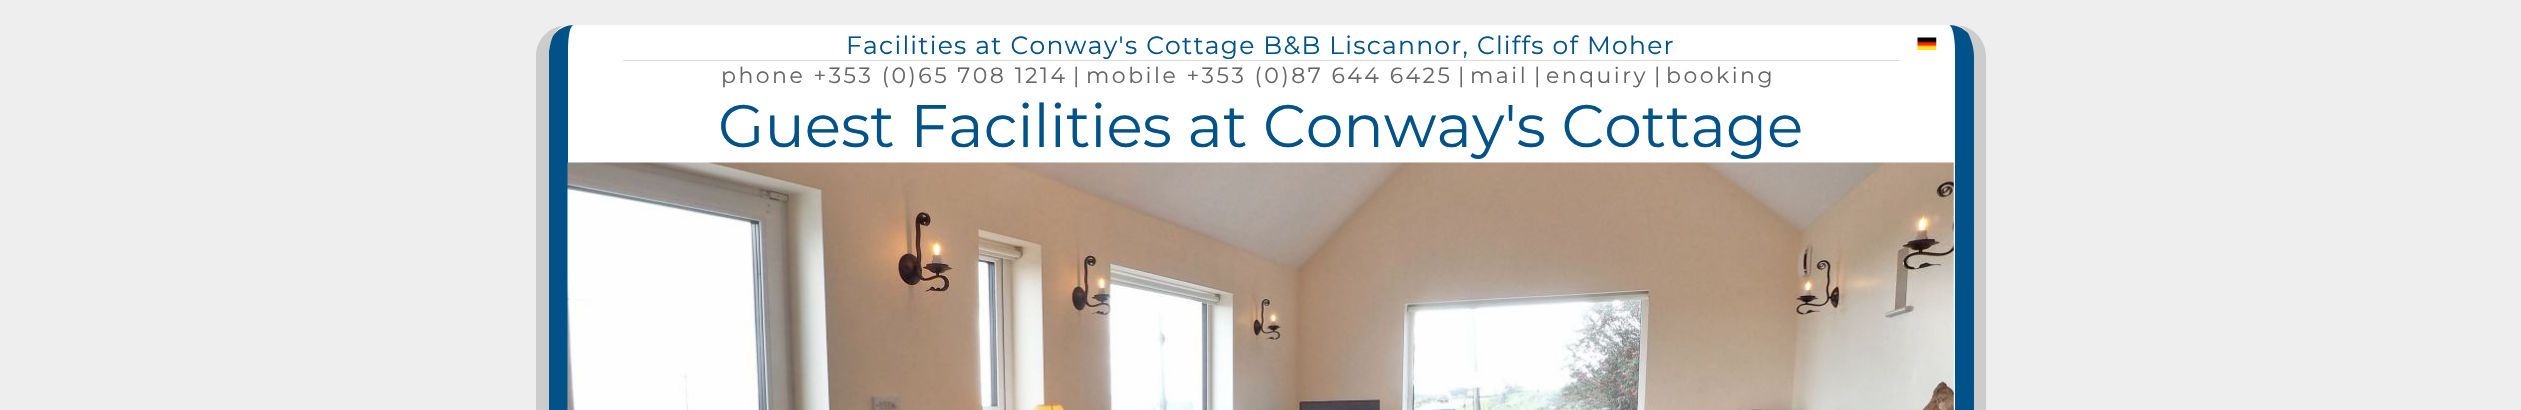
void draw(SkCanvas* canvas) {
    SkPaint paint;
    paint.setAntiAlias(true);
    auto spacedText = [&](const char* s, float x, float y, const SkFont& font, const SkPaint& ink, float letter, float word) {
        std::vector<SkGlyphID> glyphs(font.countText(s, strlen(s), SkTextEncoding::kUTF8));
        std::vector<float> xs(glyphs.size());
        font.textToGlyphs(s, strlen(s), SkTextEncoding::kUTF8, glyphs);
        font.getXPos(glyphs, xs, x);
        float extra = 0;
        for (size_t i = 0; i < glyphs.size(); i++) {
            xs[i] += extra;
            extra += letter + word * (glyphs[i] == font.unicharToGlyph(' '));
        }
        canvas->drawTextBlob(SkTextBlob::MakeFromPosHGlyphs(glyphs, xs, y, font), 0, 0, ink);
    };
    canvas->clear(0xFFEEEEEE);
    paint.setColor(0xFFFFFFFF);
    canvas->drawRoundRect(SkRect::MakeXYWH(536, 25, 1450, 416), 31, 31, paint);
    paint.setColor(0xFFCCCCCC);
    canvas->drawPath(SkPathBuilder(SkPathFillType::kEvenOdd).moveTo(568, 25).lineTo(1955, 25).cubicTo(1972, 25, 1986, 39, 1986, 56).lineTo(1986, 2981).cubicTo(1986, 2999, 1972, 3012, 1955, 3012).lineTo(568, 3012).cubicTo(550, 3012, 536, 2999, 536, 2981).lineTo(536, 56).cubicTo(536, 39, 550, 25, 568, 25).close().moveTo(568, 25).lineTo(1955, 25).cubicTo(1965, 25, 1974, 39, 1974, 56).lineTo(1974, 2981).cubicTo(1974, 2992, 1965, 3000, 1955, 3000).lineTo(568, 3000).cubicTo(557, 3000, 549, 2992, 549, 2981).lineTo(549, 56).cubicTo(549, 39, 557, 25, 568, 25).close().detach(), paint);
    paint.setColor(0xFF005288);
    canvas->drawPath(SkPathBuilder().moveTo(574, 25).cubicTo(570, 25, 568, 36, 568, 50).lineTo(568, 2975).cubicTo(568, 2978, 570, 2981, 574, 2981).lineTo(1949, 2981).cubicTo(1952, 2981, 1955, 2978, 1955, 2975).lineTo(1955, 50).cubicTo(1955, 36, 1952, 25, 1949, 25).cubicTo(1957, 25, 1963, 28, 1968, 33).cubicTo(1971, 39, 1974, 47, 1974, 56).lineTo(1974, 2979).cubicTo(1972, 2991, 1962, 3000, 1949, 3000).lineTo(574, 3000).cubicTo(560, 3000, 549, 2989, 549, 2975).lineTo(549, 51).cubicTo(550, 45, 551, 40, 553, 36).cubicTo(558, 29, 565, 25, 574, 25).close().detach(), paint);
    SkFont font1(fontMgr->matchFamilyStyle("Montserrat", SkFontStyle::Normal()), 25);
    font1.setSubpixel(true);
    spacedText("Facilities at Conway's Cottage B&B Liscannor, Cliffs of Moher", 846, 54, font1, paint, 1.25f, 0);
    canvas->drawImageRect(SkImages::DeferredFromEncodedData(SkData::MakeFromFileName("img1.png")), SkRect::MakeXYWH(1917, 37, 20, 13), SkSamplingOptions());
    paint.setColor(0xFFDDDDDD);
    canvas->drawRect(SkRect::MakeXYWH(623, 60, 1276, 1), paint);
    SkFont font2(fontMgr->matchFamilyStyle("Montserrat", SkFontStyle::Normal()), 22);
    font2.setSubpixel(true);
    paint.setColor(0xFF666666);
    spacedText("phone +353 (0)65 708 1214", 721, 83, font2, paint, 2.5f, 0);
    canvas->drawString("|", 1073, 83, font2, paint);
    spacedText("mobile +353 (0)87 644 6425", 1086, 83, font2, paint, 2.5f, 0);
    canvas->drawString("|", 1458, 83, font2, paint);
    spacedText("mail", 1470, 83, font2, paint, 2.5f, 0);
    canvas->drawString("|", 1534, 83, font2, paint);
    spacedText("enquiry", 1546, 83, font2, paint, 2.5f, 0);
    canvas->drawString("|", 1654, 83, font2, paint);
    spacedText("booking", 1666, 83, font2, paint, 2.5f, 0);
    SkFont font3(fontMgr->matchFamilyStyle("Montserrat", SkFontStyle::Normal()), 60);
    font3.setSubpixel(true);
    paint.setColor(0xFF005288);
    canvas->drawString("Guest Facilities at Conway's Cottage", 718, 147, font3, paint);
    canvas->drawImageRect(SkImages::DeferredFromEncodedData(SkData::MakeFromFileName("img2.png")), SkRect::MakeXYWH(567, 162, 1387, 248), SkSamplingOptions());
}
